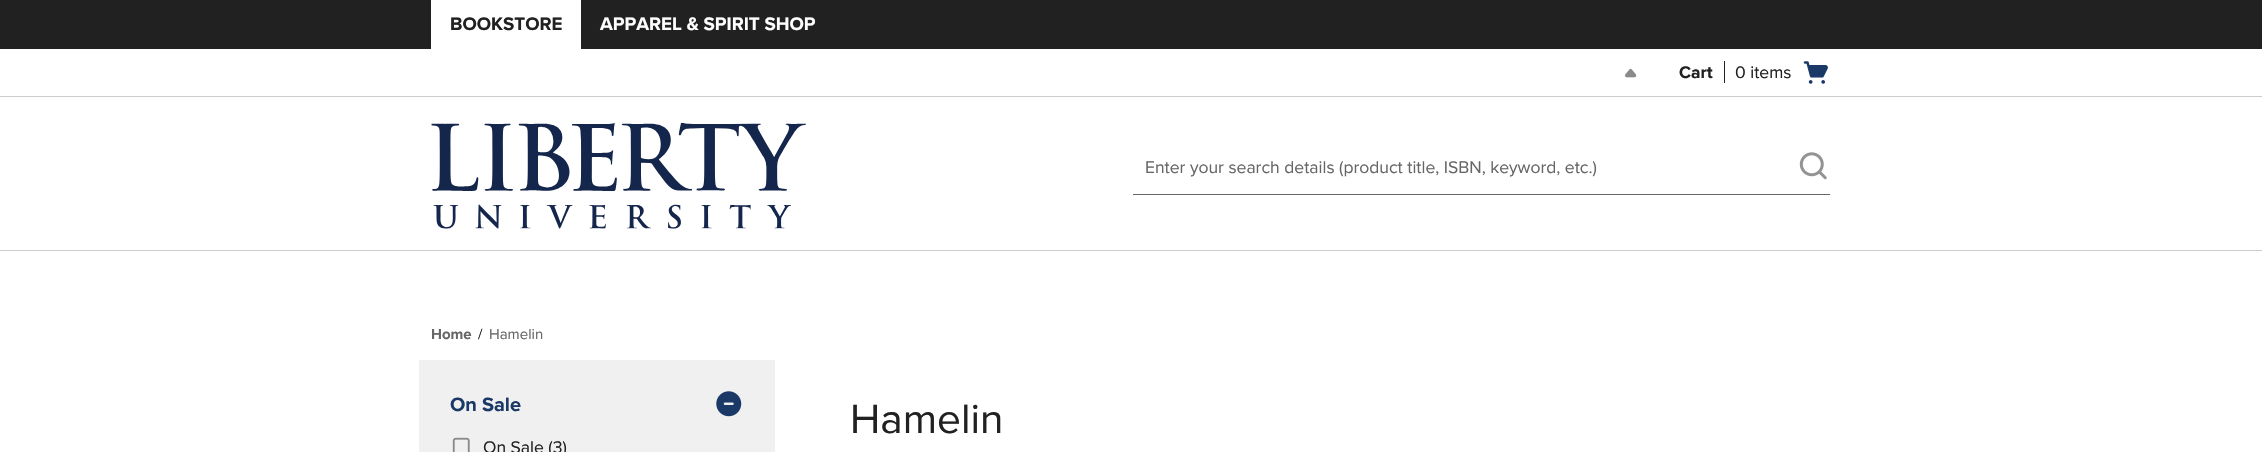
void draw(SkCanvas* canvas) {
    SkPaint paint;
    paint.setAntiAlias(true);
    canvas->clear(0xFFFFFFFF);
    paint.setColor(0xFF212121);
    canvas->drawRect(SkRect::MakeXYWH(0, 0, 2262, 49), paint);
    paint.setColor(0xFFFFFFFF);
    canvas->drawRect(SkRect::MakeXYWH(431, 0, 150, 49), paint);
    SkFont font1(fontMgr->matchFamilyStyle("Proxima Nova", SkFontStyle::Bold()), 18.75f);
    font1.setSubpixel(true);
    paint.setColor(0xFF212121);
    canvas->drawString("BOOKSTORE", 450, 30, font1, paint);
    paint.setColor(0xFFFFFFFF);
    canvas->drawString("APPAREL & SPIRIT SHOP", 600, 30, font1, paint);
    canvas->drawImageRect(SkImages::DeferredFromEncodedData(SkData::MakeFromFileName("img1.png")), SkRect::MakeXYWH(1625, 68, 12, 10), SkSamplingOptions());
    SkFont font2(fontMgr->matchFamilyStyle("Proxima Nova", SkFontStyle::Bold()), 17.5f);
    font2.setSubpixel(true);
    paint.setColor(0xFF212121);
    canvas->drawString("Cart", 1679, 78, font2, paint);
    SkFont font3(fontMgr->matchFamilyStyle("Proxima Nova", SkFontStyle::Normal()), 17.5f);
    font3.setSubpixel(true);
    canvas->drawString("0 items", 1735, 78, font3, paint);
    canvas->drawRect(SkRect::MakeXYWH(1724, 61, 1, 22), paint);
    canvas->drawImageRect(SkImages::DeferredFromEncodedData(SkData::MakeFromFileName("img2.png")), SkRect::MakeXYWH(1803, 61, 25, 23), SkSamplingOptions());
    paint.setColor(0xFFCCCCCC);
    canvas->drawRect(SkRect::MakeXYWH(0, 96, 2262, 1), paint);
    canvas->drawRect(SkRect::MakeXYWH(0, 250, 2262, 1), paint);
    canvas->drawImageRect(SkImages::DeferredFromEncodedData(SkData::MakeFromFileName("img3.png")), SkRect::MakeXYWH(431, 123, 375, 106), SkSamplingOptions());
    paint.setColor(0xFF666666);
    canvas->drawRect(SkRect::MakeXYWH(1133, 194, 697, 1), paint);
    canvas->drawString("Enter your search details (product title, ISBN, keyword, etc.)", 1145, 173, font3, paint);
    canvas->drawImageRect(SkImages::DeferredFromEncodedData(SkData::MakeFromFileName("img4.png")), SkRect::MakeXYWH(1799, 152, 28, 28), SkSamplingOptions());
    SkFont font4(fontMgr->matchFamilyStyle("Proxima Nova", SkFontStyle::Bold()), 15);
    font4.setSubpixel(true);
    canvas->drawString("Home", 431, 339, font4, paint);
    SkFont font5(fontMgr->matchFamilyStyle("Proxima Nova", SkFontStyle::Normal()), 15);
    font5.setSubpixel(true);
    paint.setColor(0xFF19212B);
    canvas->drawString("/", 478, 339, font5, paint);
    paint.setColor(0xFF666666);
    canvas->drawString("Hamelin", 489, 339, font5, paint);
    paint.setColor(0xFFF0F0F1);
    canvas->drawRect(SkRect::MakeXYWH(419, 360, 356, 92), paint);
    SkFont font6(fontMgr->matchFamilyStyle("Proxima Nova", SkFontStyle::Bold()), 20);
    font6.setSubpixel(true);
    paint.setColor(0xFF1B3967);
    canvas->drawString("On Sale", 450, 411, font6, paint);
    canvas->drawImageRect(SkImages::DeferredFromEncodedData(SkData::MakeFromFileName("img5.png")), SkRect::MakeXYWH(716, 391, 26, 26), SkSamplingOptions());
    canvas->drawImageRect(SkImages::DeferredFromEncodedData(SkData::MakeFromFileName("img6.png")), SkRect::MakeXYWH(452, 437, 18, 15), SkSamplingOptions());
    paint.setColor(0xFF212121);
    canvas->drawString("On Sale (3)", 483, 453, font3, paint);
    SkFont font7(fontMgr->matchFamilyStyle("Proxima Nova", SkFontStyle::Normal()), 42.5f);
    font7.setSubpixel(true);
    canvas->drawString("Hamelin", 850, 433, font7, paint);
}
